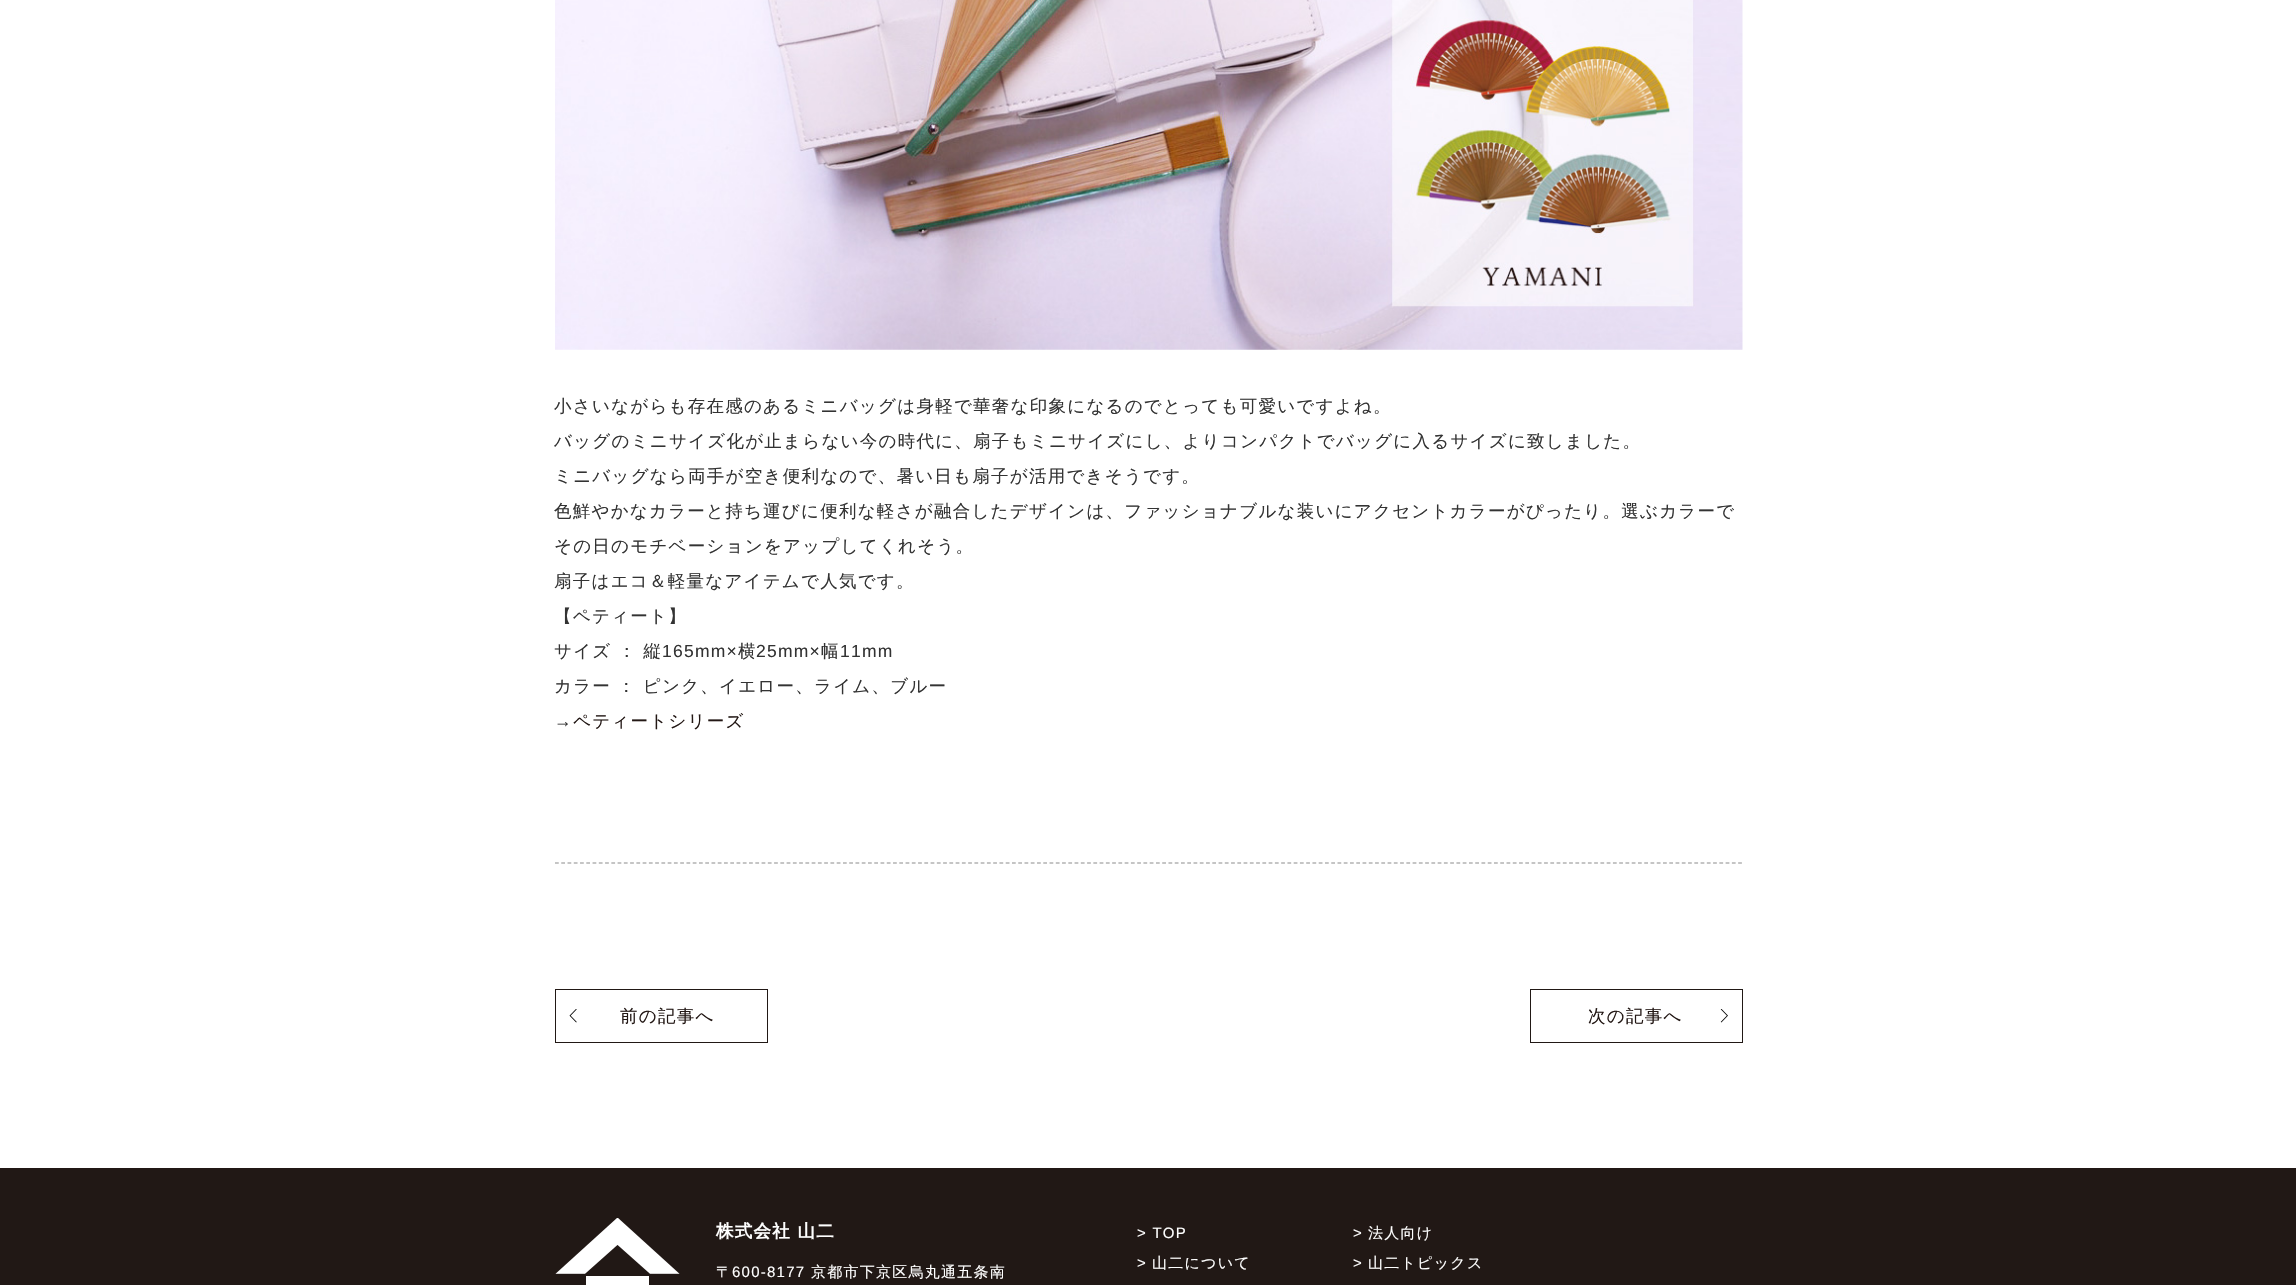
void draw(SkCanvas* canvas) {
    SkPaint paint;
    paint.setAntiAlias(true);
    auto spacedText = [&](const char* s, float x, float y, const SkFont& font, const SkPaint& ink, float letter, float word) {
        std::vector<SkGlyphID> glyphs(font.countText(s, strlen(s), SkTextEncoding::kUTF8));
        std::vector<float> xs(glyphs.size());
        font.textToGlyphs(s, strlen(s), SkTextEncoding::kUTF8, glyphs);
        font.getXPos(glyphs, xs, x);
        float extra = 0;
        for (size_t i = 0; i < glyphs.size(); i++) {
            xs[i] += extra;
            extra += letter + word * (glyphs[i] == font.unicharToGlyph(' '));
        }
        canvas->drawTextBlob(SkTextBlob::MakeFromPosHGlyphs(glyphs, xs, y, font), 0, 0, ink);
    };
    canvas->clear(0xFFFFFFFF);
    paint.setStyle(SkPaint::kStroke_Style);
    paint.setStrokeWidth(1.2f);
    paint.setColor(0xFF8B8B8B);
    paint.setPathEffect(SkDashPathEffect::Make({{3.75f, 2.51f}}, 0));
    canvas->drawPath(SkPathBuilder().moveTo(555, 863).lineTo(1742.5f, 863).detach(), paint);
    paint.setPathEffect(nullptr);
    canvas->drawImageRect(SkImages::DeferredFromEncodedData(SkData::MakeFromFileName("img1.png")), SkRect::MakeXYWH(555, 0, 1188, 350), SkSamplingOptions());
    SkFont font1(fontMgr->matchFamilyStyle("WenQuanYi Zen Hei", SkFontStyle(500, SkFontStyle::kNormal_Width, SkFontStyle::kUpright_Slant)), 17.5f);
    font1.setSubpixel(true);
    paint.setStyle(SkPaint::kFill_Style);
    paint.setColor(0xFF333333);
    spacedText("小さいながらも存在感のあるミニバッグは身軽で華奢な印象になるのでとっても可愛いですよね。", 554, 412, font1, paint, 1.25f, 0);
    spacedText("バッグのミニサイズ化が止まらない今の時代に、扇子もミニサイズにし、よりコンパクトでバッグに入るサイズに致しました。", 554, 447, font1, paint, 1.25f, 0);
    spacedText("ミニバッグなら両手が空き便利なので、暑い日も扇子が活用できそうです。", 554, 482, font1, paint, 1.25f, 0);
    spacedText("色鮮やかなカラーと持ち運びに便利な軽さが融合したデザインは、ファッショナブルな装いにアクセントカラーがぴったり。選ぶカラーで", 554, 517, font1, paint, 1.25f, 0);
    spacedText("その日のモチベーションをアップしてくれそう。", 554, 552, font1, paint, 1.25f, 0);
    spacedText("扇子はエコ＆軽量なアイテムで人気です。", 554, 587, font1, paint, 1.25f, 0);
    spacedText("【ペティート】", 554, 622, font1, paint, 1.25f, 0);
    spacedText("サイズ ： 縦", 554, 657, font1, paint, 1.25f, 0);
    SkFont font2(fontMgr->matchFamilyStyle("Liberation Sans", SkFontStyle::Normal()), 17.5f);
    font2.setSubpixel(true);
    spacedText("165mm×", 662, 657, font2, paint, 1.25f, 0);
    spacedText("横", 738, 657, font1, paint, 1.25f, 0);
    spacedText("25mm×", 756, 657, font2, paint, 1.25f, 0);
    spacedText("幅", 821, 657, font1, paint, 1.25f, 0);
    spacedText("11mm", 840, 657, font2, paint, 1.25f, 0);
    spacedText("カラー ： ピンク、イエロー、ライム、ブルー", 554, 692, font1, paint, 1.25f, 0);
    spacedText("→", 554, 727, font2, paint, 1.25f, 0);
    paint.setColor(0xFF231815);
    spacedText("ペティートシリーズ", 573, 727, font1, paint, 1.25f, 0);
    canvas->drawImageRect(SkImages::DeferredFromEncodedData(SkData::MakeFromFileName("img2.png")), SkRect::MakeXYWH(569, 1009, 8, 14), SkSamplingOptions());
    paint.setStyle(SkPaint::kStroke_Style);
    paint.setStrokeWidth(1);
    paint.setColor(0xFF211815);
    canvas->drawRect(SkRect::MakeXYWH(555.5f, 989.5f, 212, 53), paint);
    paint.setStyle(SkPaint::kFill_Style);
    paint.setColor(0xFF231815);
    spacedText("前の記事へ", 620, 1022, font1, paint, 1.25f, 0);
    canvas->drawImageRect(SkImages::DeferredFromEncodedData(SkData::MakeFromFileName("img3.png")), SkRect::MakeXYWH(1720, 1009, 8, 14), SkSamplingOptions());
    paint.setStyle(SkPaint::kStroke_Style);
    paint.setColor(0xFF211815);
    canvas->drawRect(SkRect::MakeXYWH(1530.5f, 989.5f, 212, 53), paint);
    paint.setStyle(SkPaint::kFill_Style);
    paint.setColor(0xFF231815);
    spacedText("次の記事へ", 1588, 1022, font1, paint, 1.25f, 0);
    paint.setColor(0xFF211815);
    canvas->drawRect(SkRect::MakeXYWH(0, 1168, 2296, 117), paint);
    canvas->drawImageRect(SkImages::DeferredFromEncodedData(SkData::MakeFromFileName("img4.png")), SkRect::MakeXYWH(555, 1218, 125, 67), SkSamplingOptions());
    SkFont font3(fontMgr->matchFamilyStyle("WenQuanYi Zen Hei", SkFontStyle::Bold()), 17.5f);
    font3.setSubpixel(true);
    paint.setColor(0xFFFFFFFF);
    spacedText("株式会社 山二", 716, 1237, font3, paint, 1.25f, 0);
    SkFont font4(fontMgr->matchFamilyStyle("WenQuanYi Zen Hei", SkFontStyle(500, SkFontStyle::kNormal_Width, SkFontStyle::kUpright_Slant)), 15);
    font4.setSubpixel(true);
    spacedText("〒", 716, 1277, font4, paint, 1.25f, 0);
    SkFont font5(fontMgr->matchFamilyStyle("Liberation Sans", SkFontStyle::Normal()), 15);
    font5.setSubpixel(true);
    spacedText("600-8177", 732, 1277, font5, paint, 1.25f, 0);
    spacedText("京都市下京区烏丸通五条南", 811, 1277, font4, paint, 1.25f, 0);
    spacedText("> TOP", 1137, 1238, font5, paint, 1.25f, 0);
    spacedText(">", 1137, 1268, font5, paint, 1.25f, 0);
    spacedText("山二について", 1152, 1268, font4, paint, 1.25f, 0);
    spacedText(">", 1353, 1238, font5, paint, 1.25f, 0);
    spacedText("法人向け", 1368, 1238, font4, paint, 1.25f, 0);
    spacedText(">", 1353, 1268, font5, paint, 1.25f, 0);
    spacedText("山二トピックス", 1368, 1268, font4, paint, 1.25f, 0);
}
